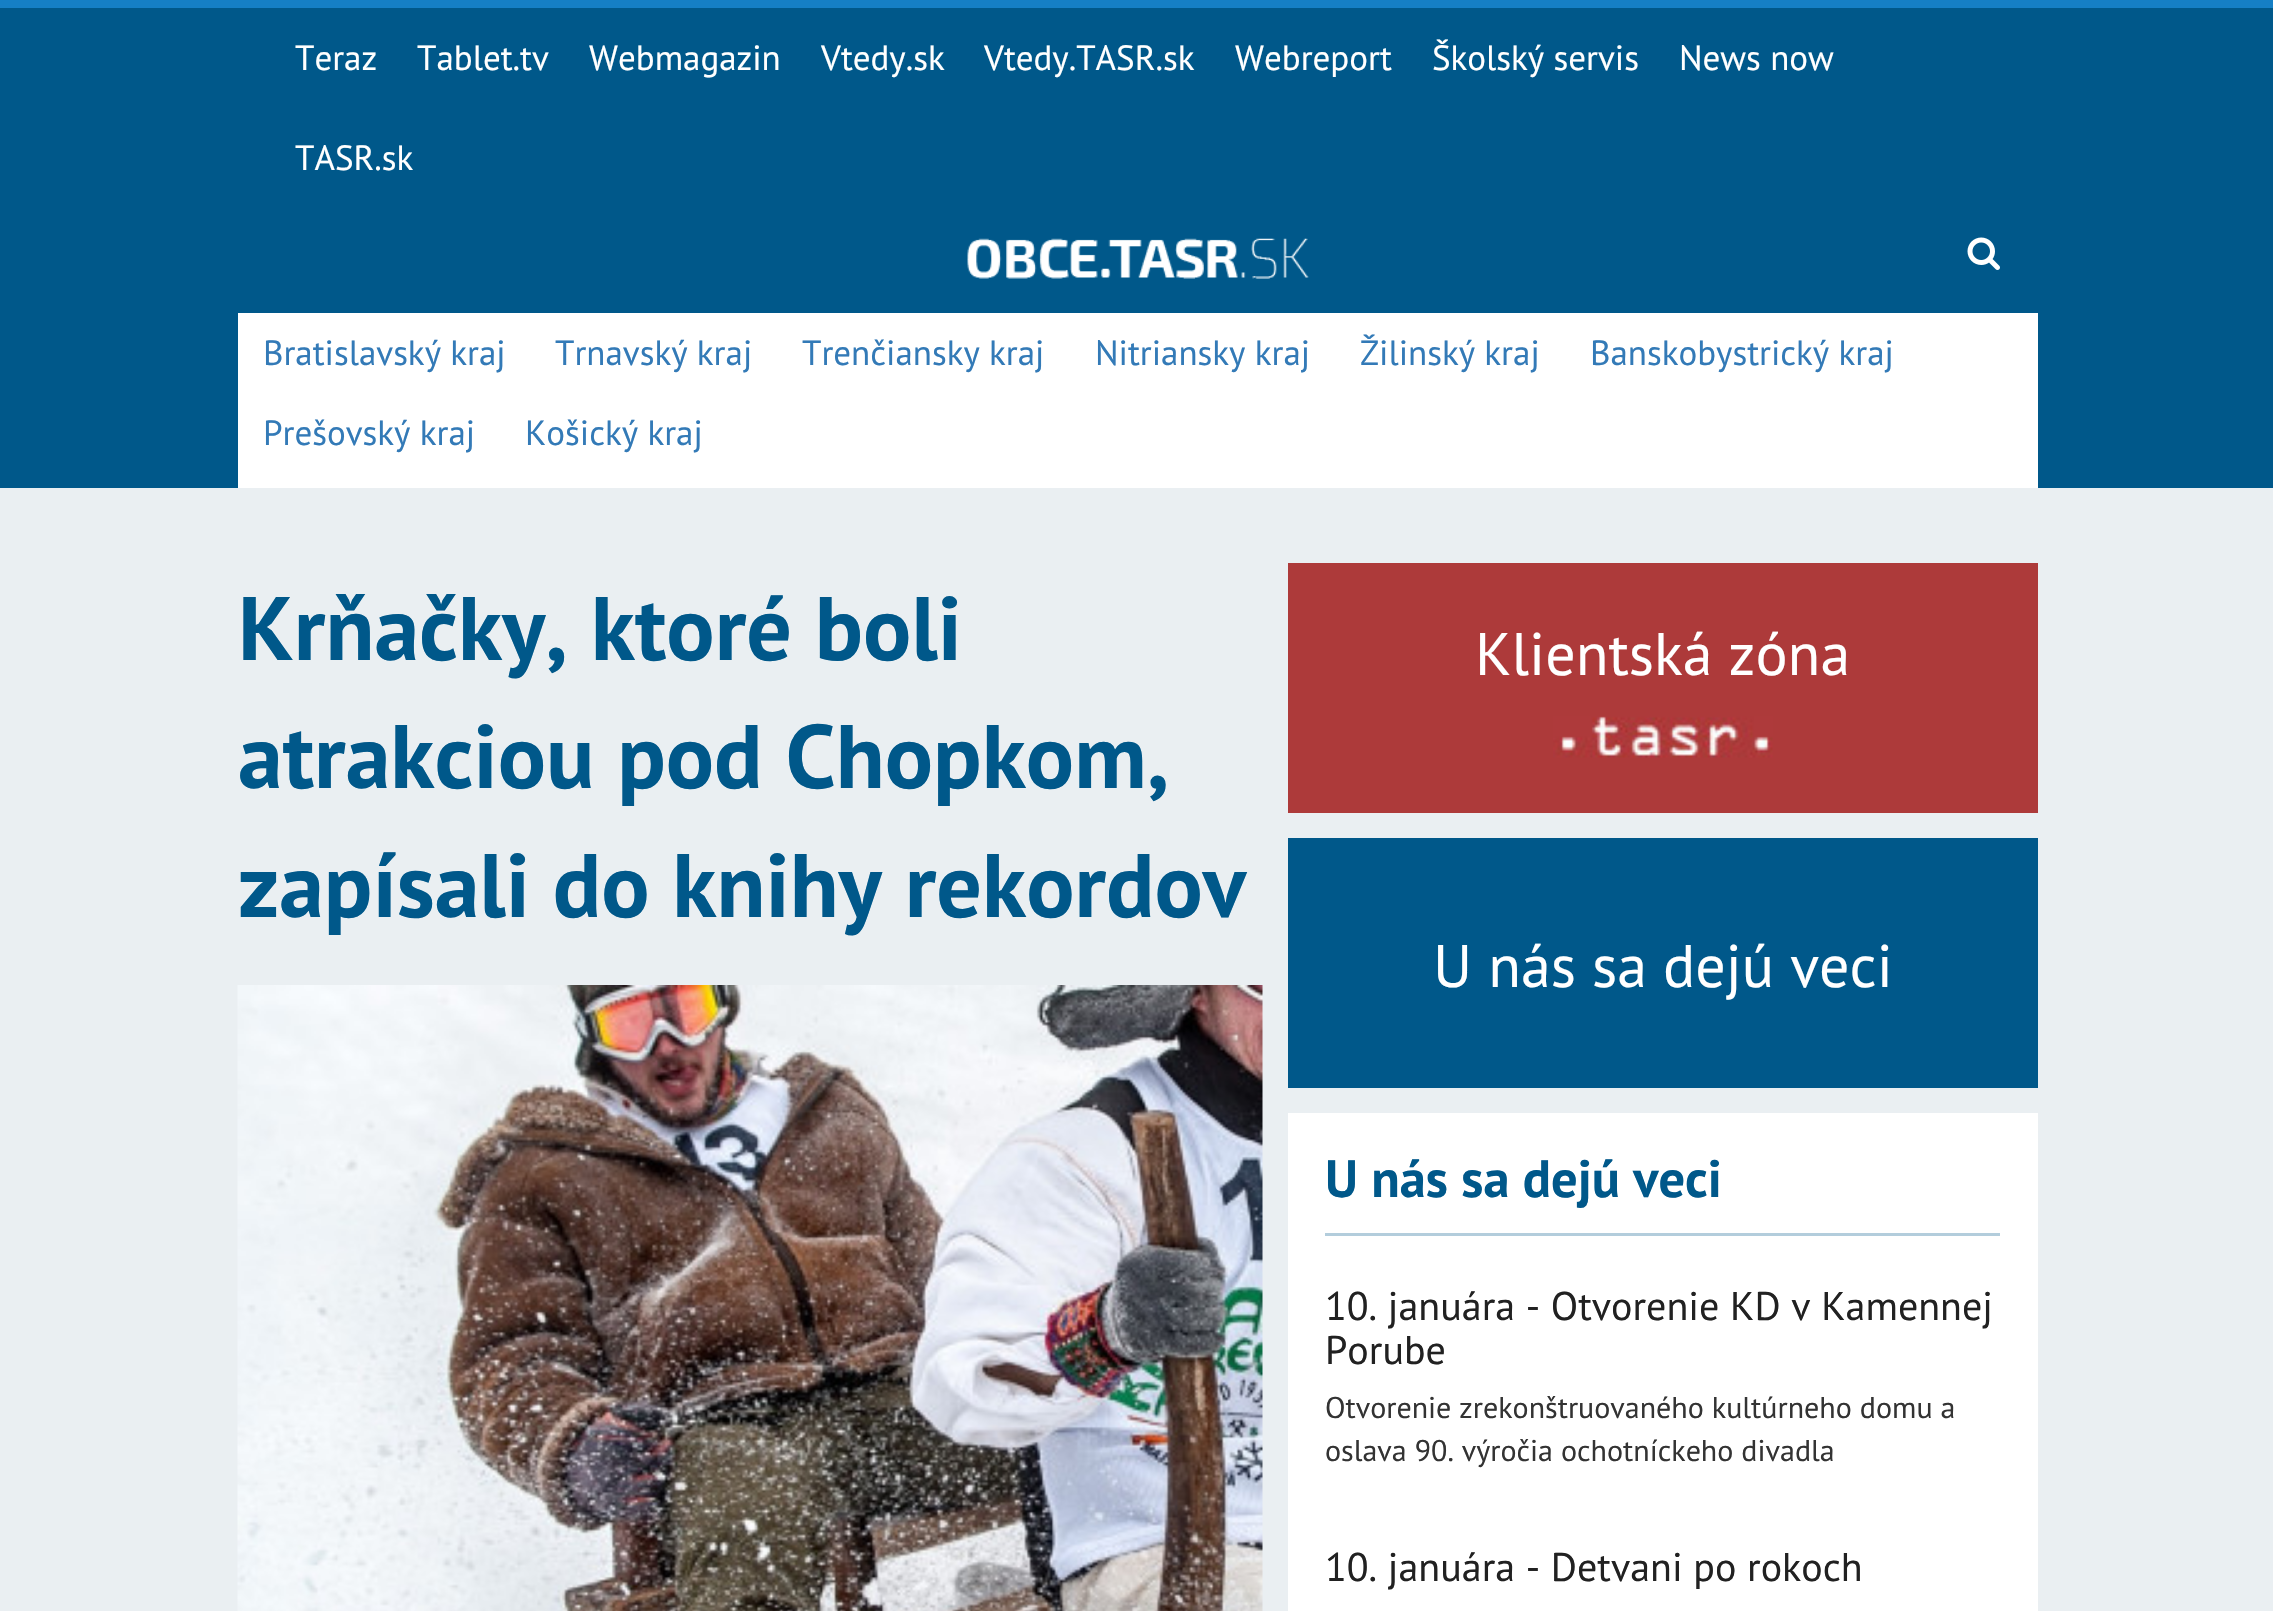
void draw(SkCanvas* canvas) {
    SkPaint paint;
    paint.setAntiAlias(true);
    canvas->clear(0xFFEAEFF2);
    paint.setColor(0xFF00588A);
    canvas->drawRect(SkRect::MakeXYWH(0, 8, 2273, 480), paint);
    paint.setColor(0xFF157FC5);
    canvas->drawRect(SkRect::MakeXYWH(0, 0, 2273, 8), paint);
    SkFont font1(fontMgr->matchFamilyStyle("PT Sans", SkFontStyle::Normal()), 35);
    font1.setSubpixel(true);
    paint.setColor(0xFFFFFFFF);
    canvas->drawString("Teraz", 295, 70, font1, paint);
    canvas->drawString("Tablet.tv", 417, 70, font1, paint);
    canvas->drawString("Webmagazin", 589, 70, font1, paint);
    canvas->drawString("Vtedy.sk", 821, 70, font1, paint);
    canvas->drawString("Vtedy.TASR.sk", 984, 70, font1, paint);
    canvas->drawString("Webreport", 1235, 70, font1, paint);
    canvas->drawString("Školský servis", 1432, 70, font1, paint);
    canvas->drawString("News now", 1679, 70, font1, paint);
    canvas->drawString("TASR.sk", 295, 170, font1, paint);
    canvas->drawImageRect(SkImages::DeferredFromEncodedData(SkData::MakeFromFileName("img1.png")), SkRect::MakeXYWH(967, 238, 342, 41), SkSamplingOptions());
    canvas->drawImageRect(SkImages::DeferredFromEncodedData(SkData::MakeFromFileName("img2.png")), SkRect::MakeXYWH(1967, 237, 33, 33), SkSamplingOptions());
    canvas->drawRect(SkRect::MakeXYWH(238, 313, 1800, 175), paint);
    paint.setColor(0xFF337AB7);
    canvas->drawString("Bratislavský kraj", 263, 365, font1, paint);
    canvas->drawString("Trnavský kraj", 555, 365, font1, paint);
    canvas->drawString("Trenčiansky kraj", 802, 365, font1, paint);
    canvas->drawString("Nitriansky kraj", 1095, 365, font1, paint);
    canvas->drawString("Žilinský kraj", 1360, 365, font1, paint);
    canvas->drawString("Banskobystrický kraj", 1590, 365, font1, paint);
    canvas->drawString("Prešovský kraj", 263, 445, font1, paint);
    canvas->drawString("Košický kraj", 525, 445, font1, paint);
    SkFont font2(fontMgr->matchFamilyStyle("PT Sans", SkFontStyle::Bold()), 90);
    font2.setSubpixel(true);
    paint.setColor(0xFF00588A);
    canvas->drawString("Krňačky, ktoré boli", 238, 660, font2, paint);
    canvas->drawString("atrakciou pod Chopkom,", 238, 788, font2, paint);
    canvas->drawString("zapísali do knihy rekordov", 238, 917, font2, paint);
    canvas->drawImageRect(SkImages::DeferredFromEncodedData(SkData::MakeFromFileName("img3.png")), SkRect::MakeXYWH(237, 985, 1026, 626), SkSamplingOptions());
    paint.setColor(0xFFAD3A3A);
    canvas->drawRect(SkRect::MakeXYWH(1288, 563, 750, 250), paint);
    SkFont font3(fontMgr->matchFamilyStyle("PT Sans", SkFontStyle::Normal()), 60);
    font3.setSubpixel(true);
    paint.setColor(0xFFFFFFFF);
    canvas->drawString("Klientská zóna", 1475, 675, font3, paint);
    canvas->drawImageRect(SkImages::DeferredFromEncodedData(SkData::MakeFromFileName("img4.png")), SkRect::MakeXYWH(1553, 716, 220, 42), SkSamplingOptions());
    paint.setColor(0xFF00588A);
    canvas->drawRect(SkRect::MakeXYWH(1288, 838, 750, 250), paint);
    paint.setColor(0xFFFFFFFF);
    canvas->drawString("U nás sa dejú veci", 1433, 987, font3, paint);
    canvas->drawRect(SkRect::MakeXYWH(1288, 1113, 750, 498), paint);
    paint.setColor(0xFFB3CDDC);
    canvas->drawRect(SkRect::MakeXYWH(1325, 1233, 675, 3), paint);
    SkFont font4(fontMgr->matchFamilyStyle("PT Sans", SkFontStyle::Bold()), 52.5f);
    font4.setSubpixel(true);
    paint.setColor(0xFF00588A);
    canvas->drawString("U nás sa dejú veci", 1325, 1197, font4, paint);
    SkFont font5(fontMgr->matchFamilyStyle("PT Sans", SkFontStyle::Normal()), 40);
    font5.setSubpixel(true);
    paint.setColor(0xFF212121);
    canvas->drawString("10. januára - Otvorenie KD v Kamennej", 1325, 1320, font5, paint);
    canvas->drawString("Porube", 1325, 1364, font5, paint);
    SkFont font6(fontMgr->matchFamilyStyle("PT Sans", SkFontStyle::Normal()), 30);
    font6.setSubpixel(true);
    paint.setColor(0xFF333333);
    canvas->drawString("Otvorenie zrekonštruovaného kultúrneho domu a", 1325, 1418, font6, paint);
    canvas->drawString("oslava 90. výročia ochotníckeho divadla", 1325, 1461, font6, paint);
    paint.setColor(0xFF212121);
    canvas->drawString("10. januára - Detvani po rokoch", 1325, 1581, font5, paint);
}
